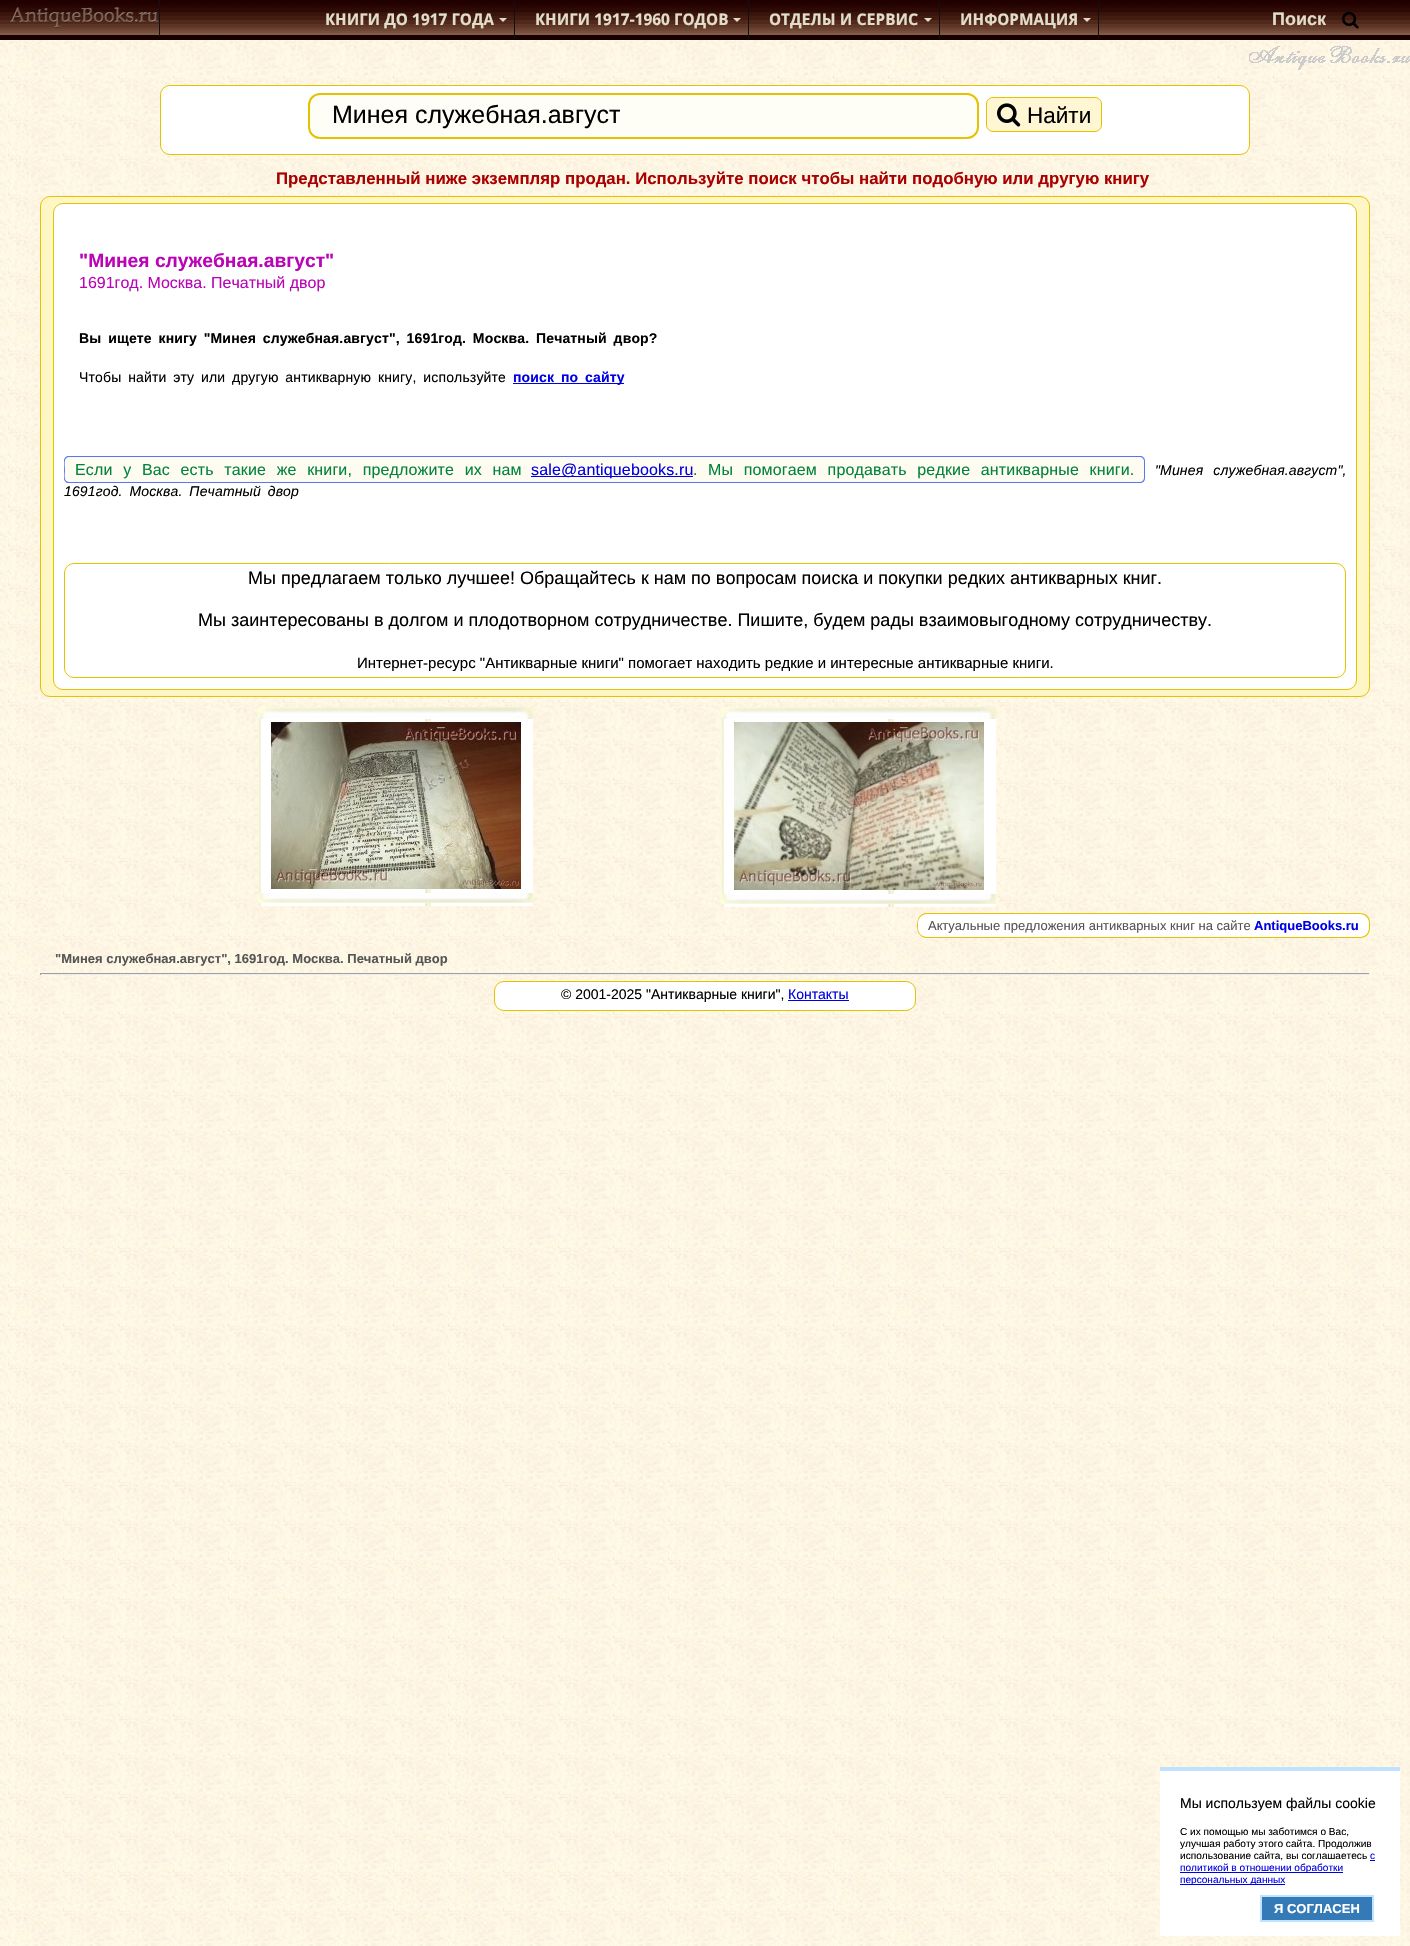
void draw(SkCanvas* canvas) {
    SkPaint paint;
    paint.setAntiAlias(true);
    auto spacedText = [&](const char* s, float x, float y, const SkFont& font, const SkPaint& ink, float letter, float word) {
        std::vector<SkGlyphID> glyphs(font.countText(s, strlen(s), SkTextEncoding::kUTF8));
        std::vector<float> xs(glyphs.size());
        font.textToGlyphs(s, strlen(s), SkTextEncoding::kUTF8, glyphs);
        font.getXPos(glyphs, xs, x);
        float extra = 0;
        for (size_t i = 0; i < glyphs.size(); i++) {
            xs[i] += extra;
            extra += letter + word * (glyphs[i] == font.unicharToGlyph(' '));
        }
        canvas->drawTextBlob(SkTextBlob::MakeFromPosHGlyphs(glyphs, xs, y, font), 0, 0, ink);
    };
    canvas->clear(0xFFFFFFFF);
    canvas->drawImageRect(SkImages::DeferredFromEncodedData(SkData::MakeFromFileName("img1.png")), SkRect::MakeXYWH(0, 40, 1410, 1906), SkSamplingOptions());
    canvas->drawImageRect(SkImages::DeferredFromEncodedData(SkData::MakeFromFileName("img2.png")), SkRect::MakeXYWH(0, 0, 1410, 35), SkSamplingOptions());
    paint.setColor(0xFF180101);
    canvas->drawRect(SkRect::MakeXYWH(0, 35, 1410, 5), paint);
    paint.setColor(0xFF111111);
    canvas->drawRect(SkRect::MakeXYWH(159, 0, 1, 36), paint);
    canvas->drawImageRect(SkImages::DeferredFromEncodedData(SkData::MakeFromFileName("img3.png")), SkRect::MakeXYWH(10, 7, 149, 21), SkSamplingOptions());
    canvas->drawRect(SkRect::MakeXYWH(514, 0, 1, 39), paint);
    SkFont font1(fontMgr->matchFamilyStyle("Droid Sans", SkFontStyle::Bold()), 16);
    font1.setSubpixel(true);
    paint.setColor(0xFFE1DDC9);
    canvas->drawString("КНИГИ ДО 1917 ГОДА", 325, 25, font1, paint);
    canvas->drawPath(SkPathBuilder().moveTo(499, 18).lineTo(507, 18).lineTo(503, 22).close().detach(), paint);
    paint.setColor(0xFF111111);
    canvas->drawRect(SkRect::MakeXYWH(748, 0, 1, 39), paint);
    paint.setColor(0xFFE1DDC9);
    canvas->drawString("КНИГИ 1917-1960 ГОДОВ", 535, 25, font1, paint);
    canvas->drawPath(SkPathBuilder().moveTo(733, 18).lineTo(741, 18).lineTo(737, 22).close().detach(), paint);
    paint.setColor(0xFF111111);
    canvas->drawRect(SkRect::MakeXYWH(939, 0, 1, 39), paint);
    paint.setColor(0xFFE1DDC9);
    canvas->drawString("ОТДЕЛЫ И СЕРВИС", 769, 25, font1, paint);
    canvas->drawPath(SkPathBuilder().moveTo(924, 18).lineTo(932, 18).lineTo(928, 22).close().detach(), paint);
    paint.setColor(0xFF111111);
    canvas->drawRect(SkRect::MakeXYWH(1098, 0, 1, 39), paint);
    paint.setColor(0xFFE1DDC9);
    canvas->drawString("ИНФОРМАЦИЯ", 960, 25, font1, paint);
    canvas->drawPath(SkPathBuilder().moveTo(1083, 18).lineTo(1091, 18).lineTo(1087, 22).close().detach(), paint);
    SkFont font2(fontMgr->matchFamilyStyle("Liberation Sans", SkFontStyle::Bold()), 18);
    font2.setSubpixel(true);
    canvas->drawString("Поиск", 1272, 25, font2, paint);
    canvas->drawImageRect(SkImages::DeferredFromEncodedData(SkData::MakeFromFileName("img4.png")), SkRect::MakeXYWH(1342, 11, 17, 18), SkSamplingOptions());
    canvas->drawImageRect(SkImages::DeferredFromEncodedData(SkData::MakeFromFileName("img5.png")), SkRect::MakeXYWH(1249, 46, 161, 24), SkSamplingOptions());
    paint.setColor(0xFFFFFFFF);
    canvas->drawRoundRect(SkRect::MakeXYWH(160.5f, 85.5f, 1089, 69), 9.5f, 9.5f, paint);
    paint.setStyle(SkPaint::kStroke_Style);
    paint.setStrokeWidth(1);
    paint.setColor(0xFFE5C200);
    canvas->drawRoundRect(SkRect::MakeXYWH(160.5f, 85.5f, 1089, 69), 9.5f, 9.5f, paint);
    paint.setStyle(SkPaint::kFill_Style);
    paint.setColor(0xFFFEFDF6);
    canvas->drawRoundRect(SkRect::MakeXYWH(309, 94, 669, 44), 11, 11, paint);
    paint.setStyle(SkPaint::kStroke_Style);
    paint.setStrokeWidth(2);
    paint.setColor(0xFFE5C200);
    canvas->drawRoundRect(SkRect::MakeXYWH(309, 94, 669, 44), 11, 11, paint);
    SkFont font3(fontMgr->matchFamilyStyle("Liberation Sans", SkFontStyle::Normal()), 25);
    font3.setSubpixel(true);
    paint.setStyle(SkPaint::kFill_Style);
    paint.setColor(0xFF000000);
    canvas->drawString("Минея служебная.август", 332, 123, font3, paint);
    paint.setColor(0xFFFFF6D4);
    canvas->drawRoundRect(SkRect::MakeXYWH(986.5f, 97.5f, 115, 34), 6.5f, 6.5f, paint);
    paint.setStyle(SkPaint::kStroke_Style);
    paint.setStrokeWidth(1);
    paint.setColor(0xFFE5C200);
    canvas->drawRoundRect(SkRect::MakeXYWH(986.5f, 97.5f, 115, 34), 6.5f, 6.5f, paint);
    canvas->drawImageRect(SkImages::DeferredFromEncodedData(SkData::MakeFromFileName("img6.png")), SkRect::MakeXYWH(997, 103, 24, 24), SkSamplingOptions());
    SkFont font4(fontMgr->matchFamilyStyle("Liberation Sans", SkFontStyle::Normal()), 22.5f);
    font4.setSubpixel(true);
    paint.setStyle(SkPaint::kFill_Style);
    paint.setColor(0xFF000000);
    canvas->drawString("Найти", 1027, 123, font4, paint);
    SkFont font5(fontMgr->matchFamilyStyle("Liberation Sans", SkFontStyle::Bold()), 16.8f);
    font5.setSubpixel(true);
    paint.setColor(0xFFAA0000);
    canvas->drawString("Представленный ниже экземпляр продан. Используйте поиск чтобы найти подобную или другую книгу", 276, 184, font5, paint);
    paint.setColor(0xFFFFF6C6);
    canvas->drawRoundRect(SkRect::MakeXYWH(40.5f, 196.5f, 1329, 500), 9.5f, 9.5f, paint);
    paint.setStyle(SkPaint::kStroke_Style);
    paint.setColor(0xFFE5C200);
    canvas->drawRoundRect(SkRect::MakeXYWH(40.5f, 196.5f, 1329, 500), 9.5f, 9.5f, paint);
    paint.setStyle(SkPaint::kFill_Style);
    paint.setColor(0xFFFFFFFF);
    canvas->drawRoundRect(SkRect::MakeXYWH(53.5f, 203.5f, 1303, 486), 9.5f, 9.5f, paint);
    paint.setStyle(SkPaint::kStroke_Style);
    paint.setColor(0xFFE5C200);
    canvas->drawRoundRect(SkRect::MakeXYWH(53.5f, 203.5f, 1303, 486), 9.5f, 9.5f, paint);
    SkFont font6(fontMgr->matchFamilyStyle("Liberation Sans", SkFontStyle::Bold()), 19.25f);
    font6.setSubpixel(true);
    paint.setStyle(SkPaint::kFill_Style);
    paint.setColor(0xFFBB03B7);
    canvas->drawString("\"Минея служебная.август\"", 79, 267, font6, paint);
    SkFont font7(fontMgr->matchFamilyStyle("Liberation Sans", SkFontStyle::Normal()), 16);
    font7.setSubpixel(true);
    canvas->drawString("1691год. Москва. Печатный двор", 79, 288, font7, paint);
    SkFont font8(fontMgr->matchFamilyStyle("Liberation Sans", SkFontStyle::Bold()), 14);
    font8.setSubpixel(true);
    paint.setColor(0xFF000000);
    spacedText("Вы ищете книгу \"Минея служебная.август\", 1691год. Москва. Печатный двор?", 79, 343, font8, paint, 0.15f, 2.75f);
    SkFont font9(fontMgr->matchFamilyStyle("Liberation Sans", SkFontStyle::Normal()), 14);
    font9.setSubpixel(true);
    spacedText("Чтобы найти эту или другую антикварную книгу, используйте", 79, 382, font9, paint, 0.15f, 2.75f);
    paint.setColor(0xFF0000E6);
    canvas->drawRect(SkRect::MakeXYWH(513, 383, 111, 1), paint);
    spacedText("поиск по сайту", 513, 382, font8, paint, 0.15f, 2.75f);
    paint.setColor(0xFFFEFCF0);
    canvas->drawPath(SkPathBuilder().moveTo(69, 456).lineTo(531, 456).lineTo(531, 483).lineTo(69, 483).cubicTo(66, 483, 64, 481, 64, 478).lineTo(64, 461).cubicTo(64, 458, 66, 456, 69, 456).close().detach(), paint);
    paint.setColor(0xFF5775F9);
    canvas->drawPath(SkPathBuilder(SkPathFillType::kEvenOdd).moveTo(69, 456).lineTo(531, 456).lineTo(531, 483).lineTo(69, 483).cubicTo(66, 483, 64, 481, 64, 478).lineTo(64, 461).cubicTo(64, 458, 66, 456, 69, 456).close().moveTo(69, 457).lineTo(531, 457).lineTo(531, 482).lineTo(69, 482).cubicTo(63, 482, 65, 473, 65, 470).cubicTo(65, 466, 63, 457, 69, 457).close().detach(), paint);
    paint.setColor(0xFF01833E);
    spacedText("Если у Вас есть такие же книги, предложите их нам", 75, 475, font7, paint, 0.15f, 6);
    paint.setColor(0xFFFEFCF0);
    canvas->drawRect(SkRect::MakeXYWH(531, 457, 162, 25), paint);
    paint.setColor(0xFF0000E6);
    canvas->drawRect(SkRect::MakeXYWH(531, 476, 162, 1), paint);
    spacedText("sale@antiquebooks.ru", 531, 475, font7, paint, 0.15f, 0);
    paint.setColor(0xFF5775F9);
    canvas->drawRect(SkRect::MakeXYWH(531, 456, 162, 1), paint);
    paint.setColor(0xFFFEFCF0);
    canvas->drawPath(SkPathBuilder().moveTo(693, 456).lineTo(1140, 456).cubicTo(1143, 456, 1145, 458, 1145, 461).lineTo(1145, 478).cubicTo(1145, 481, 1143, 483, 1140, 483).lineTo(693, 483).close().detach(), paint);
    paint.setColor(0xFF5775F9);
    canvas->drawPath(SkPathBuilder(SkPathFillType::kEvenOdd).moveTo(693, 456).lineTo(1140, 456).cubicTo(1143, 456, 1145, 458, 1145, 461).lineTo(1145, 478).cubicTo(1145, 481, 1143, 483, 1140, 483).lineTo(693, 483).close().moveTo(693, 457).lineTo(1140, 457).cubicTo(1142, 457, 1144, 459, 1144, 461).lineTo(1144, 478).cubicTo(1144, 480, 1142, 482, 1140, 482).lineTo(693, 482).close().detach(), paint);
    paint.setColor(0xFF01833E);
    spacedText(".", 693, 475, font7, paint, 0.15f, 0);
    paint.setColor(0xFF5775F9);
    canvas->drawRect(SkRect::MakeXYWH(531, 482, 162, 1), paint);
    paint.setColor(0xFF01833E);
    spacedText("Мы помогаем продавать редкие антикварные книги.", 708, 475, font7, paint, 0.15f, 6);
    SkFont font10(fontMgr->matchFamilyStyle("Liberation Sans", SkFontStyle::Italic()), 14);
    font10.setSubpixel(true);
    paint.setColor(0xFF000000);
    spacedText("\"Минея служебная.август\",", 1155, 475, font10, paint, 0.15f, 6);
    spacedText("1691год. Москва. Печатный двор", 64, 496, font10, paint, 0.15f, 2.75f);
    paint.setStyle(SkPaint::kStroke_Style);
    paint.setColor(0xFFE5C200);
    canvas->drawRoundRect(SkRect::MakeXYWH(64.5f, 563.5f, 1281, 114), 9.5f, 9.5f, paint);
    SkFont font11(fontMgr->matchFamilyStyle("Liberation Sans", SkFontStyle::Normal()), 18);
    font11.setSubpixel(true);
    paint.setStyle(SkPaint::kFill_Style);
    paint.setColor(0xFF000000);
    canvas->drawString("Мы предлагаем только лучшее! Обращайтесь к нам по вопросам поиска и покупки редких антикварных книг.", 248, 584, font11, paint);
    canvas->drawString("Мы заинтересованы в долгом и плодотворном сотрудничестве. Пишите, будем рады взаимовыгодному сотрудничеству.", 198, 626, font11, paint);
    SkFont font12(fontMgr->matchFamilyStyle("Liberation Sans", SkFontStyle::Normal()), 15);
    font12.setSubpixel(true);
    canvas->drawString("Интернет-ресурс \"Антикварные книги\" помогает находить редкие и интересные антикварные книги.", 357, 668, font12, paint);
    canvas->drawImageRect(SkImages::DeferredFromEncodedData(SkData::MakeFromFileName("img7.png")), SkRect::MakeXYWH(258, 719, 275, 187), SkSamplingOptions());
    canvas->drawImageRect(SkImages::DeferredFromEncodedData(SkData::MakeFromFileName("img8.png")), SkRect::MakeXYWH(258, 707, 275, 12), SkSamplingOptions());
    canvas->drawImageRect(SkImages::DeferredFromEncodedData(SkData::MakeFromFileName("img9.png")), SkRect::MakeXYWH(271, 722, 250, 167), SkSamplingOptions());
    canvas->drawImageRect(SkImages::DeferredFromEncodedData(SkData::MakeFromFileName("img10.png")), SkRect::MakeXYWH(258, 893, 275, 10), SkSamplingOptions());
    canvas->drawImageRect(SkImages::DeferredFromEncodedData(SkData::MakeFromFileName("img11.png")), SkRect::MakeXYWH(721, 719, 275, 188), SkSamplingOptions());
    canvas->drawImageRect(SkImages::DeferredFromEncodedData(SkData::MakeFromFileName("img8.png")), SkRect::MakeXYWH(721, 707, 275, 12), SkSamplingOptions());
    canvas->drawImageRect(SkImages::DeferredFromEncodedData(SkData::MakeFromFileName("img12.png")), SkRect::MakeXYWH(734, 722, 250, 168), SkSamplingOptions());
    canvas->drawImageRect(SkImages::DeferredFromEncodedData(SkData::MakeFromFileName("img10.png")), SkRect::MakeXYWH(721, 894, 275, 10), SkSamplingOptions());
    paint.setColor(0xFFFFFFFF);
    canvas->drawPath(SkPathBuilder().moveTo(927, 913).lineTo(1254, 913).lineTo(1254, 938).lineTo(927, 938).cubicTo(921.5f, 938, 917, 933.5f, 917, 928).lineTo(917, 923).cubicTo(917, 917.5f, 921.5f, 913, 927, 913).close().detach(), paint);
    paint.setColor(0xFFE5C200);
    canvas->drawPath(SkPathBuilder(SkPathFillType::kEvenOdd).moveTo(927, 913).lineTo(1254, 913).lineTo(1254, 938).lineTo(927, 938).cubicTo(920, 938, 917, 932, 917, 926).cubicTo(917, 920, 919, 913, 927, 913).close().moveTo(927, 914).lineTo(1254, 914).lineTo(1254, 937).lineTo(927, 937).cubicTo(922, 937, 918, 933, 918, 928).lineTo(918, 923).cubicTo(918, 918, 922, 914, 927, 914).close().detach(), paint);
    SkFont font13(fontMgr->matchFamilyStyle("Liberation Sans", SkFontStyle::Normal()), 13);
    font13.setSubpixel(true);
    paint.setColor(0xFF555555);
    canvas->drawString("Актуальные предложения антикварных книг на сайте", 928, 930, font13, paint);
    paint.setColor(0xFFFFFFFF);
    canvas->drawPath(SkPathBuilder().moveTo(1254, 913).lineTo(1360, 913).cubicTo(1365.5f, 913, 1370, 917.5f, 1370, 923).lineTo(1370, 928).cubicTo(1370, 933.5f, 1365.5f, 938, 1360, 938).lineTo(1254, 938).close().detach(), paint);
    paint.setColor(0xFFE5C200);
    canvas->drawPath(SkPathBuilder(SkPathFillType::kEvenOdd).moveTo(1254, 913).lineTo(1360, 913).cubicTo(1366, 913, 1370, 917, 1370, 923).lineTo(1370, 928).cubicTo(1370, 934, 1366, 938, 1360, 938).lineTo(1254, 938).close().moveTo(1254, 914).lineTo(1360, 914).cubicTo(1365, 914, 1369, 918, 1369, 923).lineTo(1369, 928).cubicTo(1369, 933, 1365, 937, 1360, 937).lineTo(1254, 937).close().detach(), paint);
    SkFont font14(fontMgr->matchFamilyStyle("Liberation Sans", SkFontStyle::Bold()), 13);
    font14.setSubpixel(true);
    paint.setColor(0xFF0000E6);
    canvas->drawString("AntiqueBooks.ru", 1254, 930, font14, paint);
    paint.setColor(0xFF555555);
    canvas->drawString("\"Минея служебная.август\", 1691год. Москва. Печатный двор", 55, 963, font14, paint);
    paint.setColor(0xFF9F9F9F);
    canvas->drawRect(SkRect::MakeXYWH(40, 973, 1330, 1), paint);
    paint.setColor(0xFFEEEEEE);
    canvas->drawRect(SkRect::MakeXYWH(1369, 973, 1, 2), paint);
    canvas->drawRect(SkRect::MakeXYWH(40, 974, 1330, 1), paint);
    paint.setColor(0xFF9F9F9F);
    canvas->drawRect(SkRect::MakeXYWH(40, 973, 1, 2), paint);
    paint.setColor(0xFFFFFFFF);
    canvas->drawRoundRect(SkRect::MakeXYWH(494.5f, 981.5f, 421, 29), 9.5f, 9.5f, paint);
    paint.setStyle(SkPaint::kStroke_Style);
    paint.setColor(0xFFE5C200);
    canvas->drawRoundRect(SkRect::MakeXYWH(494.5f, 981.5f, 421, 29), 9.5f, 9.5f, paint);
    paint.setStyle(SkPaint::kFill_Style);
    paint.setColor(0xFF000000);
    canvas->drawString("© 2001-2025 \"Антикварные книги\",", 561, 999, font9, paint);
    paint.setColor(0xFF0000E6);
    canvas->drawString("Контакты", 788, 999, font9, paint);
    canvas->drawRect(SkRect::MakeXYWH(788, 1000, 61, 1), paint);
    paint.setColor(0xFFFFFFFF);
    canvas->drawRect(SkRect::MakeXYWH(1160, 1771, 240, 165), paint);
    paint.setColor(0xFFBFE2FF);
    canvas->drawRect(SkRect::MakeXYWH(1160, 1767, 240, 4), paint);
    paint.setColor(0xFF000000);
    canvas->drawString("Мы используем файлы cookie", 1180, 1808, font9, paint);
    SkFont font15(fontMgr->matchFamilyStyle("Liberation Sans", SkFontStyle::Normal()), 10.1f);
    font15.setSubpixel(true);
    canvas->drawString("C их помощью мы заботимся о Вас,", 1180, 1835, font15, paint);
    canvas->drawString("улучшая работу этого сайта. Продолжив", 1180, 1847, font15, paint);
    canvas->drawString("использование сайта, вы соглашаетесь", 1180, 1859, font15, paint);
    paint.setColor(0xFF0000E6);
    canvas->drawString("с", 1370, 1859, font15, paint);
    canvas->drawRect(SkRect::MakeXYWH(1370, 1860, 5, 1), paint);
    canvas->drawRect(SkRect::MakeXYWH(1180, 1872, 163, 1), paint);
    canvas->drawString("политикой в отношении обработки", 1180, 1871, font15, paint);
    canvas->drawRect(SkRect::MakeXYWH(1180, 1884, 105, 1), paint);
    canvas->drawString("персональных данных", 1180, 1883, font15, paint);
    paint.setColor(0xFF337AB7);
    canvas->drawRect(SkRect::MakeXYWH(1261, 1896, 112, 25), paint);
    paint.setStyle(SkPaint::kStroke_Style);
    paint.setStrokeWidth(2);
    paint.setColor(0xFFBFE2FF);
    canvas->drawRect(SkRect::MakeXYWH(1261, 1896, 112, 25), paint);
    paint.setStyle(SkPaint::kFill_Style);
    paint.setColor(0xFFFFFFFF);
    canvas->drawString("Я СОГЛАСЕН", 1274, 1913, font14, paint);
}
